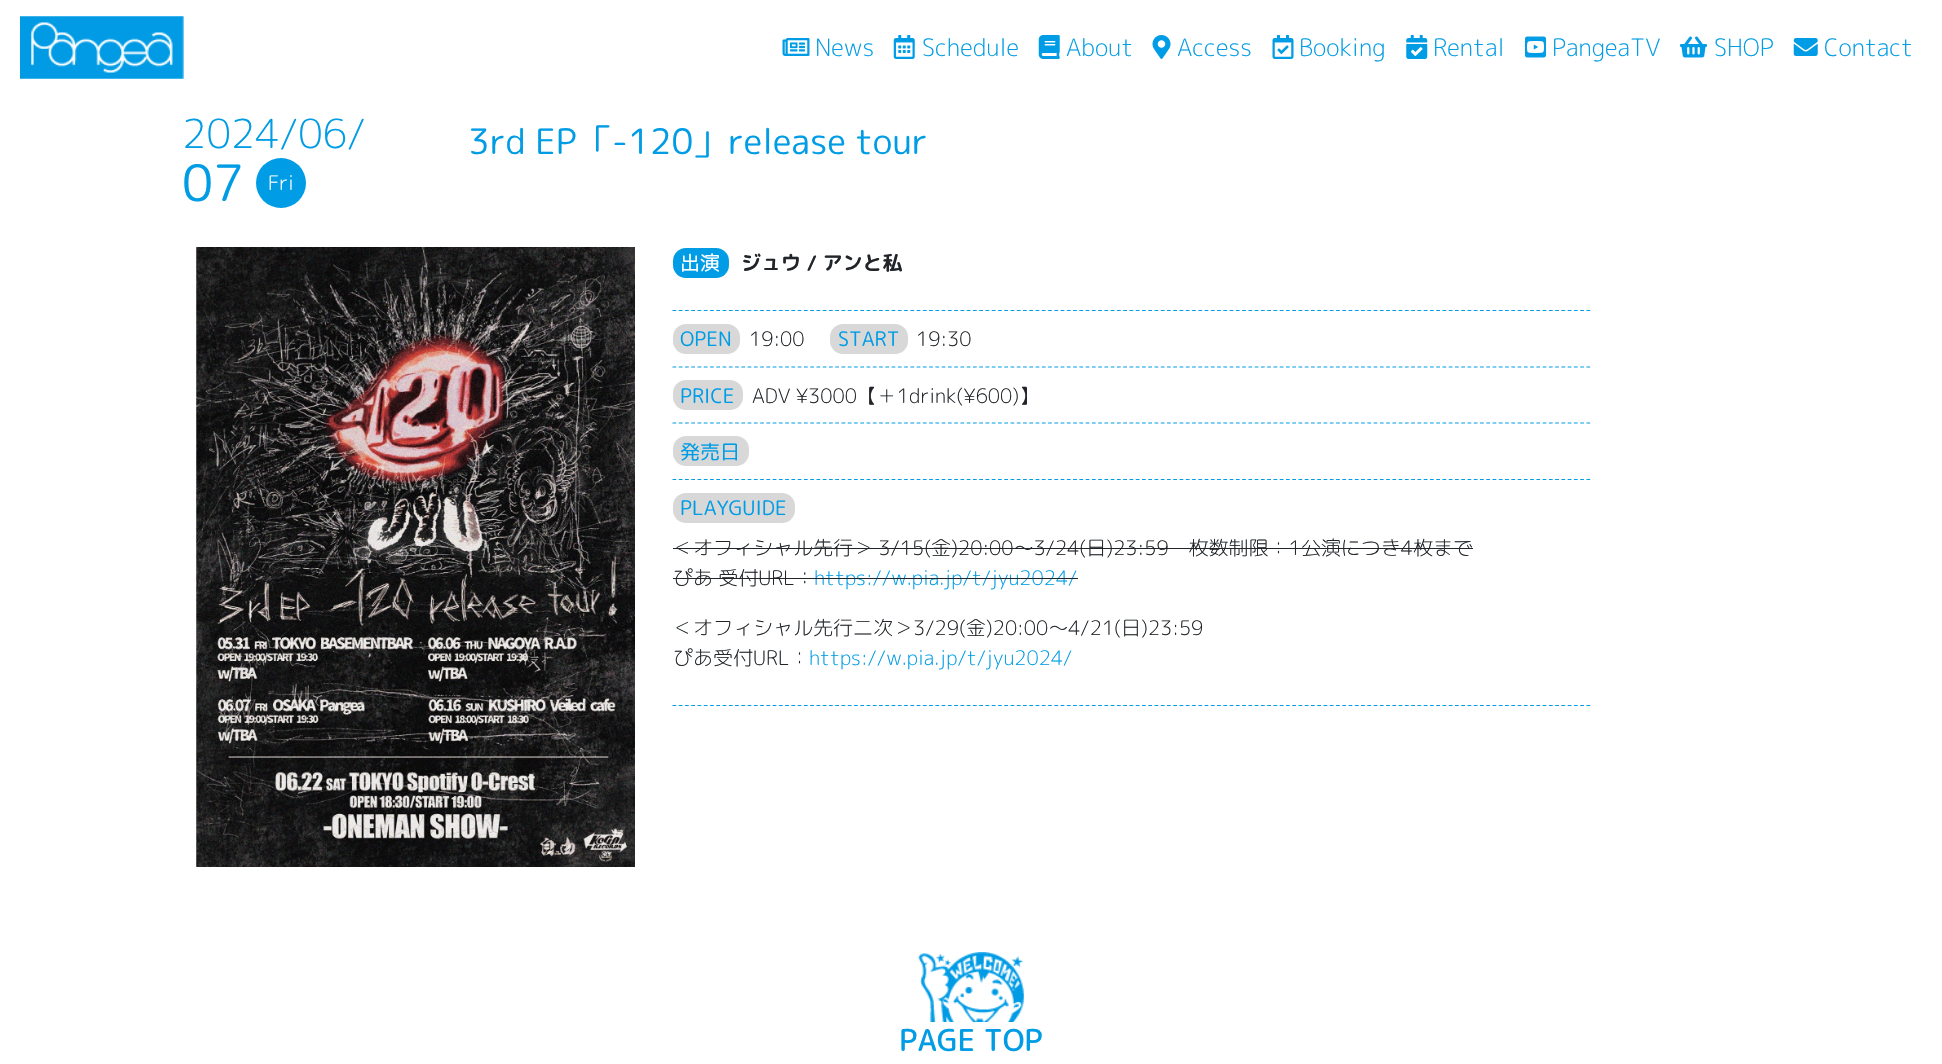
void draw(SkCanvas* canvas) {
    SkPaint paint;
    paint.setAntiAlias(true);
    canvas->clear(0xFFFFFFFF);
    canvas->drawImageRect(SkImages::DeferredFromEncodedData(SkData::MakeFromFileName("img1.png")), SkRect::MakeXYWH(20, 16, 164, 63), SkSamplingOptions());
    canvas->drawImageRect(SkImages::DeferredFromEncodedData(SkData::MakeFromFileName("img2.png")), SkRect::MakeXYWH(782, 38, 28, 18), SkSamplingOptions());
    SkFont font1(fontMgr->matchFamilyStyle("Rounded Mplus 1c", SkFontStyle(300, SkFontStyle::kNormal_Width, SkFontStyle::kUpright_Slant)), 24);
    font1.setSubpixel(true);
    paint.setColor(0xFF009CE5);
    canvas->drawString("News", 815, 56, font1, paint);
    canvas->drawImageRect(SkImages::DeferredFromEncodedData(SkData::MakeFromFileName("img3.png")), SkRect::MakeXYWH(893, 35, 22, 24), SkSamplingOptions());
    canvas->drawString("Schedule", 922, 56, font1, paint);
    canvas->drawImageRect(SkImages::DeferredFromEncodedData(SkData::MakeFromFileName("img4.png")), SkRect::MakeXYWH(1038, 35, 22, 24), SkSamplingOptions());
    canvas->drawString("About", 1066, 56, font1, paint);
    canvas->drawImageRect(SkImages::DeferredFromEncodedData(SkData::MakeFromFileName("img5.png")), SkRect::MakeXYWH(1152, 35, 19, 24), SkSamplingOptions());
    canvas->drawString("Access", 1177, 56, font1, paint);
    canvas->drawImageRect(SkImages::DeferredFromEncodedData(SkData::MakeFromFileName("img6.png")), SkRect::MakeXYWH(1272, 35, 22, 24), SkSamplingOptions());
    canvas->drawString("Booking", 1299, 56, font1, paint);
    canvas->drawImageRect(SkImages::DeferredFromEncodedData(SkData::MakeFromFileName("img7.png")), SkRect::MakeXYWH(1406, 35, 22, 24), SkSamplingOptions());
    canvas->drawString("Rental", 1433, 56, font1, paint);
    canvas->drawImageRect(SkImages::DeferredFromEncodedData(SkData::MakeFromFileName("img8.png")), SkRect::MakeXYWH(1525, 36, 21, 22), SkSamplingOptions());
    canvas->drawString("PangeaTV", 1552, 56, font1, paint);
    canvas->drawImageRect(SkImages::DeferredFromEncodedData(SkData::MakeFromFileName("img9.png")), SkRect::MakeXYWH(1680, 36, 27, 22), SkSamplingOptions());
    canvas->drawString("SHOP", 1714, 56, font1, paint);
    canvas->drawImageRect(SkImages::DeferredFromEncodedData(SkData::MakeFromFileName("img10.png")), SkRect::MakeXYWH(1793, 38, 25, 18), SkSamplingOptions());
    canvas->drawString("Contact", 1824, 56, font1, paint);
    SkFont font2(fontMgr->matchFamilyStyle("Rounded Mplus 1c", SkFontStyle(300, SkFontStyle::kNormal_Width, SkFontStyle::kUpright_Slant)), 40);
    font2.setSubpixel(true);
    canvas->drawString("2024/06/", 182, 148, font2, paint);
    SkFont font3(fontMgr->matchFamilyStyle("Rounded Mplus 1c", SkFontStyle::Normal()), 50);
    font3.setSubpixel(true);
    canvas->drawString("07", 182, 201, font3, paint);
    canvas->drawCircle(281, 183, 25, paint);
    SkFont font4(fontMgr->matchFamilyStyle("Rounded Mplus 1c", SkFontStyle(300, SkFontStyle::kNormal_Width, SkFontStyle::kUpright_Slant)), 20);
    font4.setSubpixel(true);
    paint.setColor(0xFFFFFFFF);
    canvas->drawString("Fri", 268, 190, font4, paint);
    SkFont font5(fontMgr->matchFamilyStyle("Rounded Mplus 1c", SkFontStyle::Normal()), 35);
    font5.setSubpixel(true);
    paint.setColor(0xFF009CE5);
    canvas->drawString("3rd EP「-120」release tour", 468, 154, font5, paint);
    canvas->drawImageRect(SkImages::DeferredFromEncodedData(SkData::MakeFromFileName("img11.png")), SkRect::MakeXYWH(196, 247, 439, 620), SkSamplingOptions());
    paint.setStyle(SkPaint::kStroke_Style);
    paint.setStrokeWidth(1.2f);
    paint.setPathEffect(SkDashPathEffect::Make({{3.75f, 2.51f}}, 0));
    canvas->drawPath(SkPathBuilder().moveTo(672.5f, 310.5f).lineTo(1591, 310.5f).detach(), paint);
    paint.setPathEffect(nullptr);
    paint.setStyle(SkPaint::kFill_Style);
    canvas->drawRoundRect(SkRect::MakeXYWH(673, 248, 56, 30), 13, 13, paint);
    SkFont font6(fontMgr->matchFamilyStyle("Rounded Mplus 1c", SkFontStyle::Normal()), 20);
    font6.setSubpixel(true);
    paint.setColor(0xFFFFFFFF);
    canvas->drawString("出演", 680, 270, font6, paint);
    SkFont font7(fontMgr->matchFamilyStyle("Rounded Mplus 1c Bold", SkFontStyle::Bold()), 20);
    font7.setSubpixel(true);
    paint.setColor(0xFF212529);
    canvas->drawString("ジュウ / アンと私", 741, 270, font7, paint);
    paint.setStyle(SkPaint::kStroke_Style);
    paint.setColor(0xFF009CE5);
    paint.setPathEffect(SkDashPathEffect::Make({{3.75f, 2.51f}}, 0));
    canvas->drawPath(SkPathBuilder().moveTo(672.5f, 367).lineTo(1591, 367).detach(), paint);
    paint.setPathEffect(nullptr);
    paint.setStyle(SkPaint::kFill_Style);
    paint.setColor(0xFFD8D8D8);
    canvas->drawRoundRect(SkRect::MakeXYWH(673, 324, 67, 30), 13, 13, paint);
    paint.setColor(0xFF009CE5);
    canvas->drawString("OPEN", 680, 346, font6, paint);
    paint.setColor(0xFF212529);
    canvas->drawString("19:00", 749, 346, font4, paint);
    paint.setColor(0xFFD8D8D8);
    canvas->drawRoundRect(SkRect::MakeXYWH(830, 324, 78, 30), 13, 13, paint);
    paint.setColor(0xFF009CE5);
    canvas->drawString("START", 838, 346, font6, paint);
    paint.setColor(0xFF212529);
    canvas->drawString("19:30", 916, 346, font4, paint);
    paint.setStyle(SkPaint::kStroke_Style);
    paint.setColor(0xFF009CE5);
    paint.setPathEffect(SkDashPathEffect::Make({{3.75f, 2.51f}}, 0));
    canvas->drawPath(SkPathBuilder().moveTo(672.5f, 423).lineTo(1591, 423).detach(), paint);
    paint.setPathEffect(nullptr);
    paint.setStyle(SkPaint::kFill_Style);
    paint.setColor(0xFFD8D8D8);
    canvas->drawRoundRect(SkRect::MakeXYWH(673, 380, 70, 30), 13, 13, paint);
    paint.setColor(0xFF009CE5);
    canvas->drawString("PRICE", 680, 403, font6, paint);
    paint.setColor(0xFF212529);
    canvas->drawString("ADV ¥3000【＋1drink(¥600)】", 752, 403, font4, paint);
    paint.setStyle(SkPaint::kStroke_Style);
    paint.setColor(0xFF009CE5);
    paint.setPathEffect(SkDashPathEffect::Make({{3.75f, 2.51f}}, 0));
    canvas->drawPath(SkPathBuilder().moveTo(672.5f, 479.5f).lineTo(1591, 479.5f).detach(), paint);
    paint.setPathEffect(nullptr);
    paint.setStyle(SkPaint::kFill_Style);
    paint.setColor(0xFFD8D8D8);
    canvas->drawRoundRect(SkRect::MakeXYWH(673, 436, 76, 30), 13, 13, paint);
    paint.setColor(0xFF009CE5);
    canvas->drawString("発売日", 680, 459, font6, paint);
    paint.setStyle(SkPaint::kStroke_Style);
    paint.setPathEffect(SkDashPathEffect::Make({{3.75f, 2.51f}}, 0));
    canvas->drawPath(SkPathBuilder().moveTo(672.5f, 705.5f).lineTo(1591, 705.5f).detach(), paint);
    paint.setPathEffect(nullptr);
    paint.setStyle(SkPaint::kFill_Style);
    paint.setColor(0xFFD8D8D8);
    canvas->drawRoundRect(SkRect::MakeXYWH(673, 493, 122, 30), 13, 13, paint);
    paint.setColor(0xFF009CE5);
    canvas->drawString("PLAYGUIDE", 680, 515, font6, paint);
    paint.setColor(0xFF212529);
    canvas->drawString("＜オフィシャル先行＞ 3/15(金)20:00～3/24(日)23:59　枚数制限：1公演につき4枚まで", 673, 555, font4, paint);
    canvas->drawRect(SkRect::MakeXYWH(673, 548, 800, 1), paint);
    canvas->drawString("ぴあ 受付URL：", 673, 585, font4, paint);
    canvas->drawRect(SkRect::MakeXYWH(673, 578, 141, 1), paint);
    paint.setColor(0xFF009CE5);
    canvas->drawString("https://w.pia.jp/t/jyu2024/", 814, 585, font4, paint);
    paint.setColor(0xFF212529);
    canvas->drawRect(SkRect::MakeXYWH(814, 578, 264, 1), paint);
    canvas->drawString("＜オフィシャル先行二次＞3/29(金)20:00～4/21(日)23:59", 673, 635, font4, paint);
    canvas->drawString("ぴあ受付URL：", 673, 665, font4, paint);
    paint.setColor(0xFF009CE5);
    canvas->drawString("https://w.pia.jp/t/jyu2024/", 809, 665, font4, paint);
    canvas->drawImageRect(SkImages::DeferredFromEncodedData(SkData::MakeFromFileName("img12.png")), SkRect::MakeXYWH(918, 952, 106, 70), SkSamplingOptions());
    SkFont font8(fontMgr->matchFamilyStyle("Rounded Mplus 1c", SkFontStyle(500, SkFontStyle::kNormal_Width, SkFontStyle::kUpright_Slant)), 30);
    font8.setSubpixel(true);
    canvas->drawString("PAGE TOP", 899, 1051, font8, paint);
}
